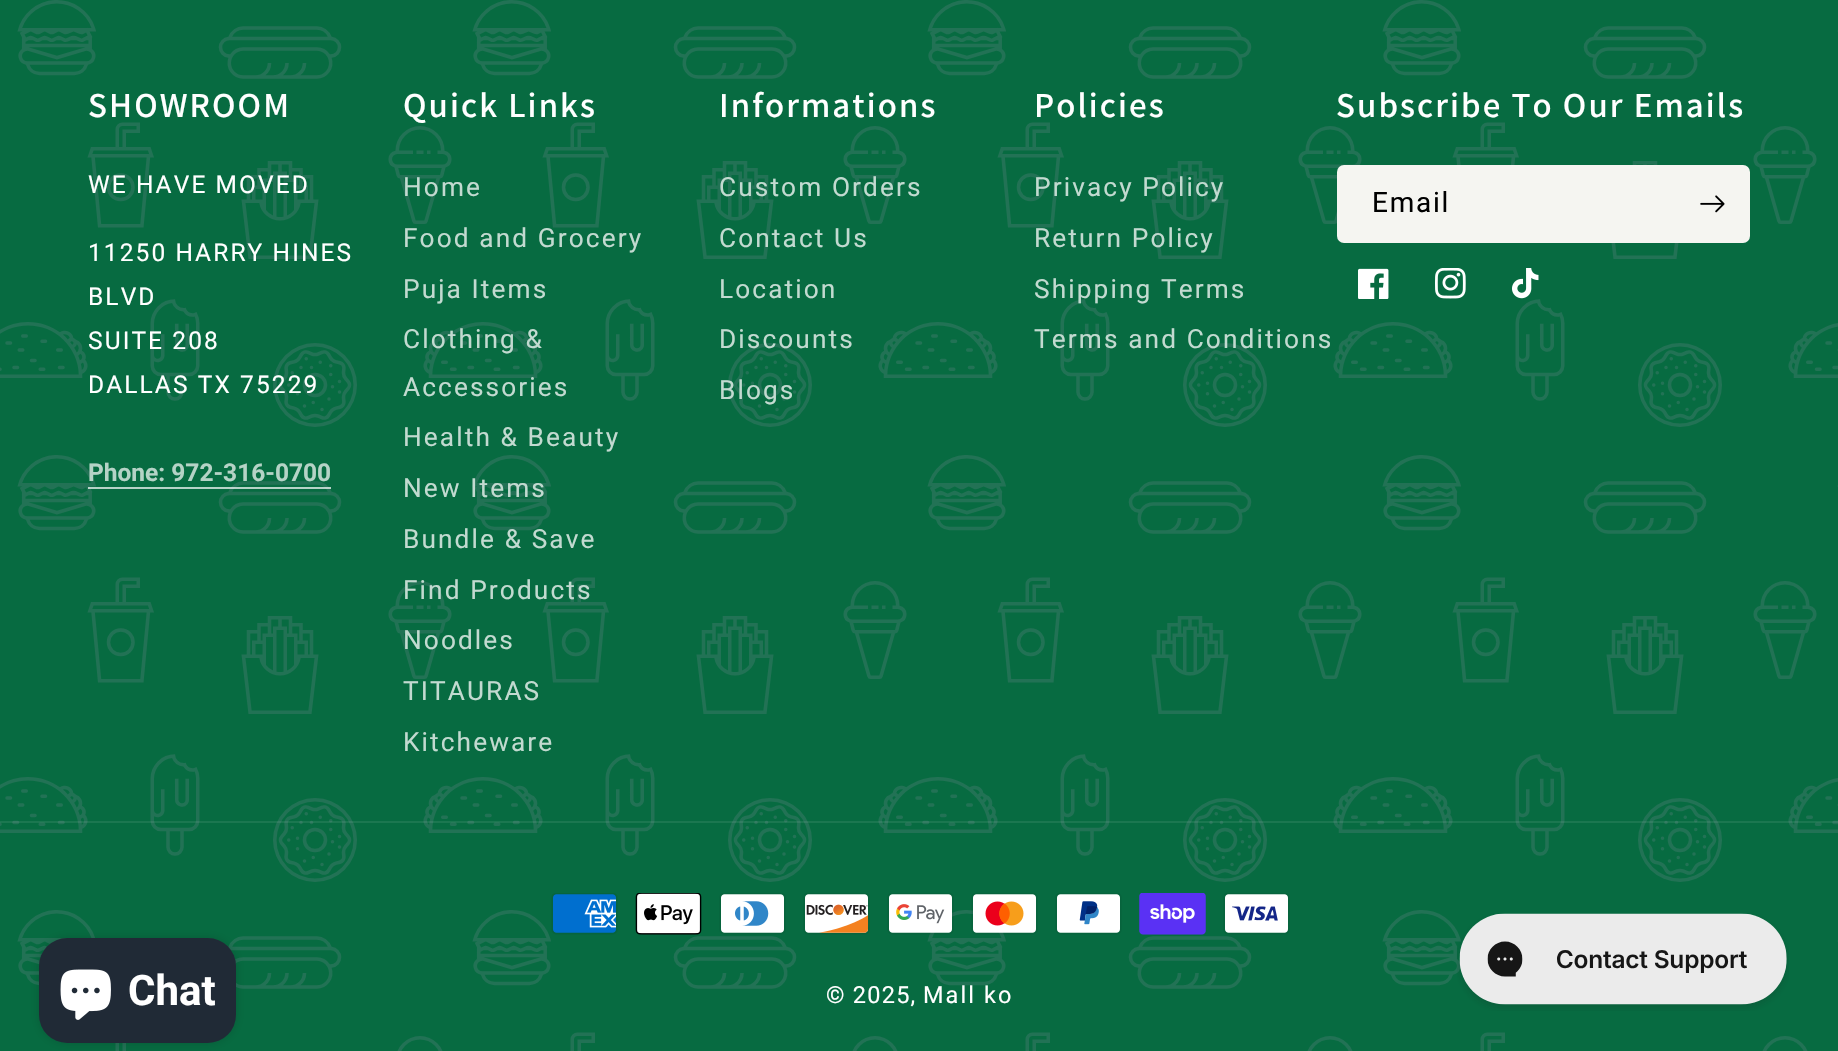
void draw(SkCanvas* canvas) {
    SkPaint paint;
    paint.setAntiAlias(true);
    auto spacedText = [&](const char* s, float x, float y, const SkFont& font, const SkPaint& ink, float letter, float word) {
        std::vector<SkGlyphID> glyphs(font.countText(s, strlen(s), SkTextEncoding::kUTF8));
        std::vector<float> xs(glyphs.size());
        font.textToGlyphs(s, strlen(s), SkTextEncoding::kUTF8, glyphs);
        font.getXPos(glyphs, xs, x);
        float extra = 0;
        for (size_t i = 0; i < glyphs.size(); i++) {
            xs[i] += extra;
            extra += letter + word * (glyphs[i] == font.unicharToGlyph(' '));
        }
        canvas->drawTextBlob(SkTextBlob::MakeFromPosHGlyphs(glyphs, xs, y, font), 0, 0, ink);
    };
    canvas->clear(0xFF076B41);
    canvas->drawImageRect(SkImages::DeferredFromEncodedData(SkData::MakeFromFileName("img1.png")), SkRect::MakeXYWH(0, 0, 1838, 1051), SkSamplingOptions());
    SkFont font1(fontMgr->matchFamilyStyle("Assistant", SkFontStyle(600, SkFontStyle::kNormal_Width, SkFontStyle::kUpright_Slant)), 35);
    font1.setSubpixel(true);
    paint.setColor(0xFFFFFFFF);
    spacedText("SHOWROOM", 88, 117, font1, paint, 2.1f, 0);
    SkFont font2(fontMgr->matchFamilyStyle("Roboto", SkFontStyle::Normal()), 24.5f);
    font2.setSubpixel(true);
    spacedText("WE HAVE MOVED", 88, 193, font2, paint, 2.1f, 0);
    spacedText("11250 HARRY HINES", 88, 261, font2, paint, 2.1f, 0);
    spacedText("BLVD", 88, 305, font2, paint, 2.1f, 0);
    spacedText("SUITE 208", 88, 349, font2, paint, 2.1f, 0);
    spacedText("DALLAS TX 75229", 88, 393, font2, paint, 2.1f, 0);
    SkFont font3(fontMgr->matchFamilyStyle("Roboto", SkFontStyle::Bold()), 24.5f);
    font3.setSubpixel(true);
    paint.setColor(0xFFB5D3C6);
    canvas->drawString("Phone: 972-316-0700", 88, 481, font3, paint);
    paint.setColor(0xB3FFFFFF);
    canvas->drawRect(SkRect::MakeXYWH(88, 487, 243, 2), paint);
    paint.setColor(0xFFFFFFFF);
    spacedText("Quick Links", 403, 117, font1, paint, 2.1f, 0);
    SkFont font4(fontMgr->matchFamilyStyle("Roboto", SkFontStyle::Normal()), 26.25f);
    font4.setSubpixel(true);
    paint.setColor(0xFFC2DAD0);
    spacedText("Home", 403, 196, font4, paint, 2.1f, 0);
    spacedText("Food and Grocery", 403, 247, font4, paint, 2.1f, 0);
    spacedText("Puja Items", 403, 298, font4, paint, 2.1f, 0);
    spacedText("Clothing &", 403, 348, font4, paint, 2.1f, 0);
    spacedText("Accessories", 403, 396, font4, paint, 2.1f, 0);
    spacedText("Health & Beauty", 403, 446, font4, paint, 2.1f, 0);
    spacedText("New Items", 403, 497, font4, paint, 2.1f, 0);
    spacedText("Bundle & Save", 403, 548, font4, paint, 2.1f, 0);
    spacedText("Find Products", 403, 599, font4, paint, 2.1f, 0);
    spacedText("Noodles", 403, 649, font4, paint, 2.1f, 0);
    spacedText("TITAURAS", 403, 700, font4, paint, 2.1f, 0);
    spacedText("Kitcheware", 403, 751, font4, paint, 2.1f, 0);
    paint.setColor(0xFFFFFFFF);
    spacedText("Informations", 719, 117, font1, paint, 2.1f, 0);
    paint.setColor(0xFFC2DAD0);
    spacedText("Custom Orders", 719, 196, font4, paint, 2.1f, 0);
    spacedText("Contact Us", 719, 247, font4, paint, 2.1f, 0);
    spacedText("Location", 719, 298, font4, paint, 2.1f, 0);
    spacedText("Discounts", 719, 348, font4, paint, 2.1f, 0);
    spacedText("Blogs", 719, 399, font4, paint, 2.1f, 0);
    paint.setColor(0xFFFFFFFF);
    spacedText("Policies", 1034, 117, font1, paint, 2.1f, 0);
    paint.setColor(0xFFC2DAD0);
    spacedText("Privacy Policy", 1034, 196, font4, paint, 2.1f, 0);
    spacedText("Return Policy", 1034, 247, font4, paint, 2.1f, 0);
    spacedText("Shipping Terms", 1034, 298, font4, paint, 2.1f, 0);
    spacedText("Terms and Conditions", 1034, 348, font4, paint, 2.1f, 0);
    paint.setColor(0xFFFFFFFF);
    spacedText("Subscribe To Our Emails", 1336, 117, font1, paint, 2.1f, 0);
    paint.setColor(0xFFF5F5F1);
    canvas->drawRoundRect(SkRect::MakeXYWH(1337, 165, 413, 78), 7, 7, paint);
    SkFont font5(fontMgr->matchFamilyStyle("Roboto", SkFontStyle::Normal()), 28);
    font5.setSubpixel(true);
    paint.setColor(0xFF000000);
    spacedText("Email", 1372, 212, font5, paint, 1.75f, 0);
    canvas->drawImageRect(SkImages::DeferredFromEncodedData(SkData::MakeFromFileName("img2.png")), SkRect::MakeXYWH(1700, 195, 25, 18), SkSamplingOptions());
    canvas->drawImageRect(SkImages::DeferredFromEncodedData(SkData::MakeFromFileName("img3.png")), SkRect::MakeXYWH(1358, 268, 31, 31), SkSamplingOptions());
    canvas->drawImageRect(SkImages::DeferredFromEncodedData(SkData::MakeFromFileName("img4.png")), SkRect::MakeXYWH(1435, 268, 31, 31), SkSamplingOptions());
    canvas->drawImageRect(SkImages::DeferredFromEncodedData(SkData::MakeFromFileName("img5.png")), SkRect::MakeXYWH(1512, 268, 27, 31), SkSamplingOptions());
    paint.setColor(0x14FFFFFF);
    canvas->drawRect(SkRect::MakeXYWH(0, 821, 1838, 2), paint);
    canvas->drawImageRect(SkImages::DeferredFromEncodedData(SkData::MakeFromFileName("img6.png")), SkRect::MakeXYWH(551, 893, 67, 42), SkSamplingOptions());
    canvas->drawImageRect(SkImages::DeferredFromEncodedData(SkData::MakeFromFileName("img7.png")), SkRect::MakeXYWH(635, 893, 67, 42), SkSamplingOptions());
    canvas->drawImageRect(SkImages::DeferredFromEncodedData(SkData::MakeFromFileName("img8.png")), SkRect::MakeXYWH(719, 893, 67, 42), SkSamplingOptions());
    canvas->drawImageRect(SkImages::DeferredFromEncodedData(SkData::MakeFromFileName("img9.png")), SkRect::MakeXYWH(803, 893, 67, 42), SkSamplingOptions());
    canvas->drawImageRect(SkImages::DeferredFromEncodedData(SkData::MakeFromFileName("img10.png")), SkRect::MakeXYWH(887, 893, 67, 42), SkSamplingOptions());
    canvas->drawImageRect(SkImages::DeferredFromEncodedData(SkData::MakeFromFileName("img11.png")), SkRect::MakeXYWH(971, 893, 67, 42), SkSamplingOptions());
    canvas->drawImageRect(SkImages::DeferredFromEncodedData(SkData::MakeFromFileName("img12.png")), SkRect::MakeXYWH(1055, 893, 67, 42), SkSamplingOptions());
    canvas->drawImageRect(SkImages::DeferredFromEncodedData(SkData::MakeFromFileName("img13.png")), SkRect::MakeXYWH(1139, 893, 67, 42), SkSamplingOptions());
    canvas->drawImageRect(SkImages::DeferredFromEncodedData(SkData::MakeFromFileName("img14.png")), SkRect::MakeXYWH(1223, 893, 67, 42), SkSamplingOptions());
    SkFont font6(fontMgr->matchFamilyStyle("Roboto", SkFontStyle::Normal()), 23.5f);
    font6.setSubpixel(true);
    paint.setColor(0xFFFFFFFF);
    spacedText("© 2025,", 826, 1003, font6, paint, 1.25f, 0);
    spacedText("Mall ko", 923, 1003, font6, paint, 2.1f, 0);
    paint.setColor(0x26000000);
    paint.setMaskFilter(SkMaskFilter::MakeBlur(kNormal_SkBlurStyle, 4.5f));
    canvas->drawRoundRect(SkRect::MakeXYWH(39, 938, 197, 105), 28, 28, paint);
    paint.setMaskFilter(nullptr);
    paint.setColor(0xFF202A36);
    canvas->drawRoundRect(SkRect::MakeXYWH(39, 938, 197, 105), 28, 28, paint);
    canvas->drawImageRect(SkImages::DeferredFromEncodedData(SkData::MakeFromFileName("img15.png")), SkRect::MakeXYWH(60, 969, 51, 51), SkSamplingOptions());
    SkFont font7(fontMgr->matchFamilyStyle("Roboto", SkFontStyle::Bold()), 42);
    font7.setSubpixel(true);
    paint.setColor(0xFFFFFFFF);
    canvas->drawString("Chat", 128, 1005, font7, paint);
    canvas->drawImageRect(SkImages::DeferredFromEncodedData(SkData::MakeFromFileName("img16.png")), SkRect::MakeXYWH(1457, 913, 332, 98), SkSamplingOptions());
}
